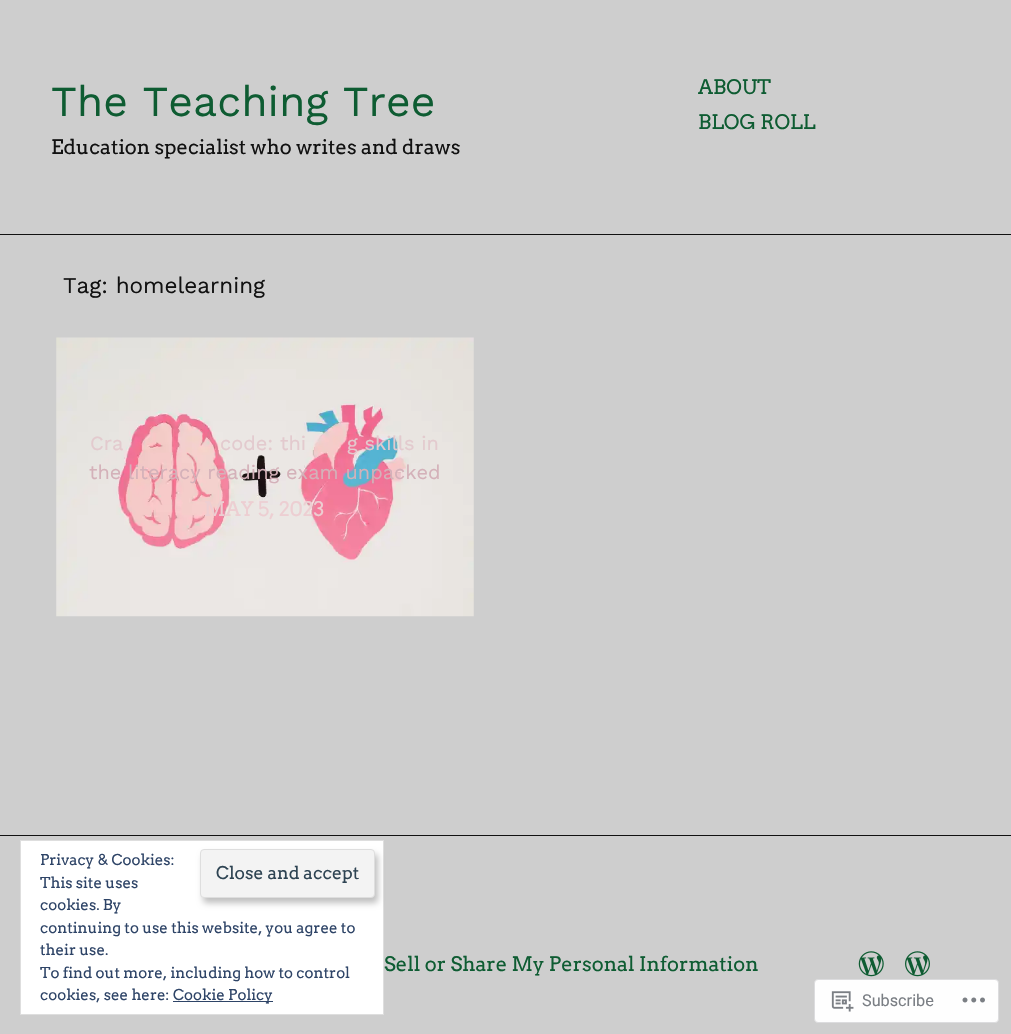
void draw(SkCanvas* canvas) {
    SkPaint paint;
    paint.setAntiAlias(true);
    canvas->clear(0xFFCECECE);
    SkFont font1(fontMgr->matchFamilyStyle("Work Sans", SkFontStyle::Normal()), 42.75f);
    font1.setSubpixel(true);
    paint.setColor(0xFF0E5C32);
    canvas->drawString("The Teaching Tree", 51, 116, font1, paint);
    SkFont font2(fontMgr->matchFamilyStyle("Arvo", SkFontStyle::Normal()), 20);
    font2.setSubpixel(true);
    paint.setColor(0xFF111111);
    canvas->drawString("Education specialist who writes and draws", 51, 154, font2, paint);
    paint.setColor(0xFF0E5C32);
    canvas->drawString("ABOUT", 698, 94, font2, paint);
    canvas->drawString("BLOG ROLL", 698, 129, font2, paint);
    paint.setColor(0xFF111111);
    canvas->drawRect(SkRect::MakeXYWH(0, 234, 1011, 1), paint);
    SkFont font3(fontMgr->matchFamilyStyle("Work Sans", SkFontStyle::Normal()), 22.5f);
    font3.setSubpixel(true);
    canvas->drawString("Tag: homelearning", 63, 293, font3, paint);
    canvas->drawImageRect(SkImages::DeferredFromEncodedData(SkData::MakeFromFileName("img1.png")), SkRect::MakeXYWH(56, 337, 418, 280), SkSamplingOptions());
    SkFont font4(fontMgr->matchFamilyStyle("Work Sans", SkFontStyle::Normal()), 20);
    font4.setSubpixel(true);
    paint.setColor(0xFFE3CACE);
    canvas->drawString("Cra", 90, 450, font4, paint);
    canvas->drawString("code: thi", 220, 450, font4, paint);
    canvas->drawString("g skills in", 347, 450, font4, paint);
    paint.setColor(0xFFD4B1B9);
    canvas->drawString("the literacy reading exam unpacked", 89, 479, font4, paint);
    paint.setColor(0xFFEDCED2);
    canvas->drawString("MAY 5, 2023", 204, 516, font2, paint);
    paint.setColor(0xFF111111);
    canvas->drawRect(SkRect::MakeXYWH(0, 835, 1011, 1), paint);
    paint.setColor(0xFF0E5C32);
    canvas->drawString("Sell or Share My Personal Information", 384, 971, font2, paint);
    canvas->drawImageRect(SkImages::DeferredFromEncodedData(SkData::MakeFromFileName("img2.png")), SkRect::MakeXYWH(858, 951, 26, 26), SkSamplingOptions());
    canvas->drawImageRect(SkImages::DeferredFromEncodedData(SkData::MakeFromFileName("img3.png")), SkRect::MakeXYWH(905, 951, 25, 26), SkSamplingOptions());
    paint.setColor(0xFFFFFFFF);
    canvas->drawRect(SkRect::MakeXYWH(20.5f, 840.5f, 363, 174), paint);
    paint.setStyle(SkPaint::kStroke_Style);
    paint.setStrokeWidth(1);
    paint.setColor(0xFFDEDEDE);
    canvas->drawRect(SkRect::MakeXYWH(20.5f, 840.5f, 363, 174), paint);
    SkFont font5(fontMgr->matchFamilyStyle("Arvo", SkFontStyle::Normal()), 15);
    font5.setSubpixel(true);
    paint.setStyle(SkPaint::kFill_Style);
    paint.setColor(0xFF2E4467);
    canvas->drawString("Privacy & Cookies:", 40, 865, font5, paint);
    canvas->drawString("This site uses", 40, 888, font5, paint);
    paint.setColor(0x40000000);
    paint.setMaskFilter(SkMaskFilter::MakeBlur(kNormal_SkBlurStyle, 3));
    canvas->drawRoundRect(SkRect::MakeXYWH(203, 854, 175, 49), 4, 4, paint);
    paint.setMaskFilter(nullptr);
    paint.setColor(0xFFF3F3F3);
    canvas->drawRoundRect(SkRect::MakeXYWH(200.5f, 849.5f, 174, 48), 3.5f, 3.5f, paint);
    paint.setStyle(SkPaint::kStroke_Style);
    paint.setColor(0xFFDEDEDE);
    canvas->drawRoundRect(SkRect::MakeXYWH(200.5f, 849.5f, 174, 48), 3.5f, 3.5f, paint);
    SkFont font6(fontMgr->matchFamilyStyle("Arvo", SkFontStyle::Normal()), 17.5f);
    font6.setSubpixel(true);
    paint.setStyle(SkPaint::kFill_Style);
    paint.setColor(0xFF2E4453);
    canvas->drawString("Close and accept", 216, 879, font6, paint);
    paint.setColor(0xFF2E4467);
    canvas->drawString("cookies. By", 40, 910, font5, paint);
    canvas->drawString("continuing to use this website, you agree to", 40, 933, font5, paint);
    canvas->drawString("their use.", 40, 955, font5, paint);
    canvas->drawString("To find out more, including how to control", 40, 978, font5, paint);
    canvas->drawString("cookies, see here:", 40, 1000, font5, paint);
    canvas->drawRect(SkRect::MakeXYWH(173, 1001, 100, 1), paint);
    canvas->drawString("Cookie Policy", 173, 1000, font5, paint);
    paint.setColor(0xFFFEFEFE);
    canvas->drawRoundRect(SkRect::MakeXYWH(814.5f, 979.5f, 184, 43), 3.5f, 3.5f, paint);
    paint.setStyle(SkPaint::kStroke_Style);
    paint.setColor(0xFFDCDCDE);
    canvas->drawRoundRect(SkRect::MakeXYWH(814.5f, 979.5f, 184, 43), 3.5f, 3.5f, paint);
    canvas->drawImageRect(SkImages::DeferredFromEncodedData(SkData::MakeFromFileName("img4.png")), SkRect::MakeXYWH(831, 991, 23, 21), SkSamplingOptions());
    SkFont font7(fontMgr->matchFamilyStyle("Roboto", SkFontStyle::Normal()), 16.25f);
    font7.setSubpixel(true);
    paint.setStyle(SkPaint::kFill_Style);
    paint.setColor(0xFF7A7E84);
    canvas->drawString("Subscribe", 862, 1006, font7, paint);
    canvas->drawImageRect(SkImages::DeferredFromEncodedData(SkData::MakeFromFileName("img5.png")), SkRect::MakeXYWH(962, 997, 23, 6), SkSamplingOptions());
}
